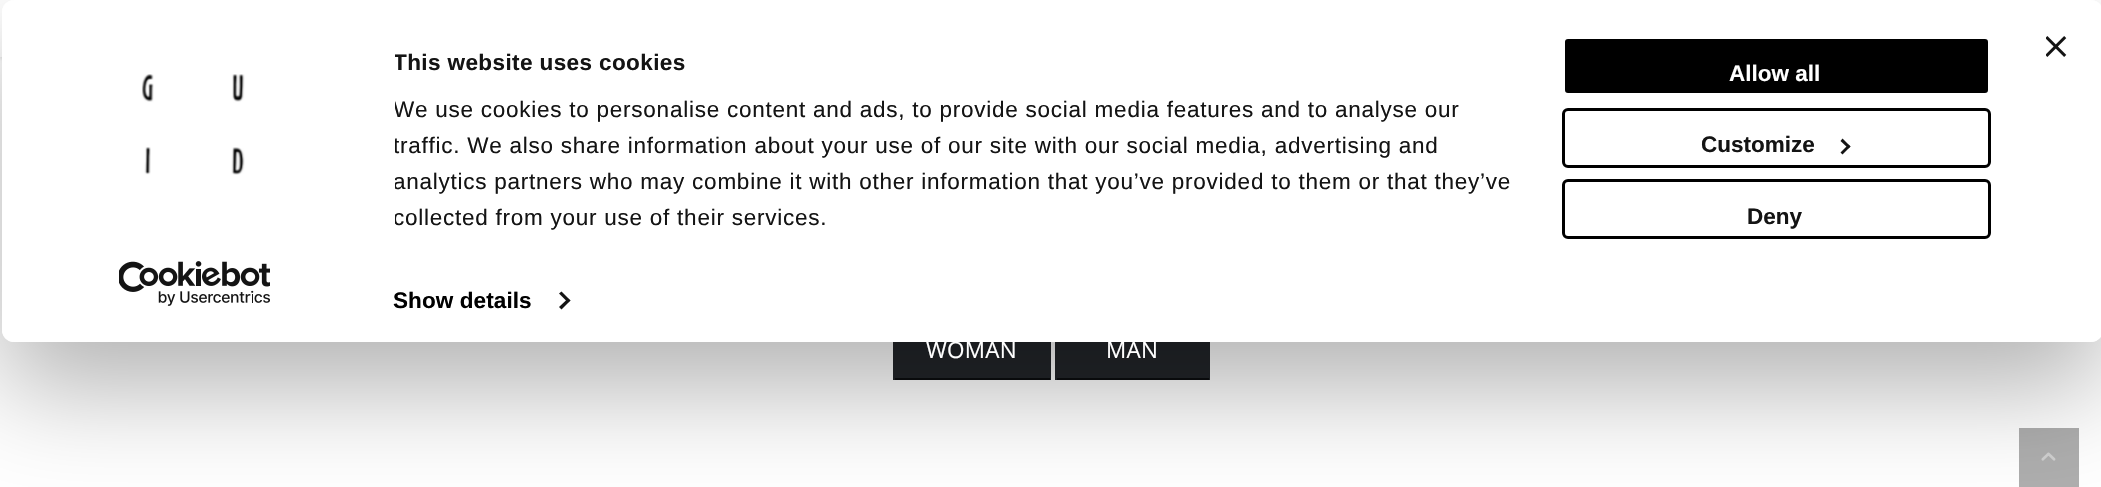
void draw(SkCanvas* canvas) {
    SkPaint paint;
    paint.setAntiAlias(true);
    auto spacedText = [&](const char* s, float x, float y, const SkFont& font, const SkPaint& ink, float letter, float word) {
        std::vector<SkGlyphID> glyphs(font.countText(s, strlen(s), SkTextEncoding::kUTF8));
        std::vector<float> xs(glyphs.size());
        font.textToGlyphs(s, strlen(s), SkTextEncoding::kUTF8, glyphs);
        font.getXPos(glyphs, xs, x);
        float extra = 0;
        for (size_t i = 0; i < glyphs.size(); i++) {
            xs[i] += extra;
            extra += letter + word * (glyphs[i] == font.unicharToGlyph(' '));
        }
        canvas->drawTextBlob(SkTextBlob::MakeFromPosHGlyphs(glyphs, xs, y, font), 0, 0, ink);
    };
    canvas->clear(0xFFFFFFFF);
    paint.setColor(0x1A000000);
    paint.setMaskFilter(SkMaskFilter::MakeBlur(kNormal_SkBlurStyle, 1.5f));
    canvas->drawRect(SkRect::MakeXYWH(0, 2, 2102, 57), paint);
    paint.setMaskFilter(nullptr);
    paint.setColor(0xFFFFFFFF);
    canvas->drawRect(SkRect::MakeXYWH(0, 0, 2101, 57), paint);
    paint.setColor(0xFF222529);
    canvas->drawRect(SkRect::MakeXYWH(895, 342, 154, 36), paint);
    canvas->drawRect(SkRect::MakeXYWH(1049, 342, 2, 38), paint);
    paint.setColor(0xFF0B0C0E);
    canvas->drawRect(SkRect::MakeXYWH(893, 378, 157, 2), paint);
    paint.setColor(0xFF222529);
    canvas->drawRect(SkRect::MakeXYWH(893, 342, 2, 38), paint);
    canvas->drawRect(SkRect::MakeXYWH(1057, 342, 151, 36), paint);
    canvas->drawRect(SkRect::MakeXYWH(1208, 342, 2, 38), paint);
    paint.setColor(0xFF0B0C0E);
    canvas->drawRect(SkRect::MakeXYWH(1055, 378, 154, 2), paint);
    paint.setColor(0xFF222529);
    canvas->drawRect(SkRect::MakeXYWH(1055, 342, 2, 38), paint);
    paint.setColor(0xFFAEAEAE);
    canvas->drawRect(SkRect::MakeXYWH(2019, 428, 60, 59), paint);
    canvas->drawImageRect(SkImages::DeferredFromEncodedData(SkData::MakeFromFileName("img4.png")), SkRect::MakeXYWH(2041, 452, 15, 9), SkSamplingOptions());
    canvas->save();
    canvas->clipPath(SkPathBuilder(SkPathFillType::kEvenOdd).moveTo(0, 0).lineTo(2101, 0).lineTo(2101, 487).lineTo(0, 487).close().moveTo(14, 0).lineTo(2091, 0).cubicTo(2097.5f, 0, 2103, 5.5f, 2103, 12).lineTo(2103, 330).cubicTo(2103, 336.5f, 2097.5f, 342, 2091, 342).lineTo(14, 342).cubicTo(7.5f, 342, 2, 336.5f, 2, 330).lineTo(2, 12).cubicTo(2, 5.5f, 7.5f, 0, 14, 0).close().detach(), true);
    paint.setColor(0x4D000000);
    paint.setMaskFilter(SkMaskFilter::MakeBlur(kNormal_SkBlurStyle, 52.5f));
    canvas->drawRoundRect(SkRect::MakeXYWH(2, 45, 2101, 342), 12, 12, paint);
    paint.setMaskFilter(nullptr);
    canvas->restore();
    paint.setColor(0xFFFFFFFF);
    canvas->drawRoundRect(SkRect::MakeXYWH(2, 0, 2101, 342), 12, 12, paint);
    canvas->drawImageRect(SkImages::DeferredFromEncodedData(SkData::MakeFromFileName("img1.png")), SkRect::MakeXYWH(2046, 36, 21, 21), SkSamplingOptions());
    canvas->drawImageRect(SkImages::DeferredFromEncodedData(SkData::MakeFromFileName("img2.png")), SkRect::MakeXYWH(141, 74, 104, 101), SkSamplingOptions());
    canvas->drawImageRect(SkImages::DeferredFromEncodedData(SkData::MakeFromFileName("img3.png")), SkRect::MakeXYWH(119, 261, 151, 45), SkSamplingOptions());
    canvas->save();
    canvas->clipRect(SkRect::MakeXYWH(395, 45, 1158, 191));
    SkFont font1(fontMgr->matchFamilyStyle("Liberation Sans", SkFontStyle::Bold()), 22.5f);
    font1.setSubpixel(true);
    paint.setColor(0xFF141414);
    spacedText("This website uses cookies", 393, 70, font1, paint, 0.4f, 0);
    SkFont font2(fontMgr->matchFamilyStyle("Liberation Sans", SkFontStyle::Normal()), 22.5f);
    font2.setSubpixel(true);
    spacedText("We use cookies to personalise content and ads, to provide social media features and to analyse our", 393, 117, font2, paint, 0.75f, 0);
    spacedText("traffic. We also share information about your use of our site with our social media, advertising and", 393, 153, font2, paint, 0.75f, 0);
    spacedText("analytics partners who may combine it with other information that you’ve provided to them or that they’ve", 393, 189, font2, paint, 0.75f, 0);
    spacedText("collected from your use of their services.", 393, 225, font2, paint, 0.75f, 0);
    canvas->restore();
    paint.setColor(0xFF000000);
    spacedText("Show details", 393, 308, font1, paint, 0.1f, 0);
    paint.setColor(0xFF141414);
    canvas->drawPath(SkPathBuilder().moveTo(561.5f, 291.5f).lineTo(570.5f, 300.5f).lineTo(568, 302.5f).lineTo(559, 293.5f).close().detach(), paint);
    canvas->drawPath(SkPathBuilder().moveTo(568, 298.5f).lineTo(570.5f, 300.5f).lineTo(561.5f, 309.5f).lineTo(559, 307).close().detach(), paint);
    paint.setColor(0xFF000000);
    canvas->drawRoundRect(SkRect::MakeXYWH(1563.5f, 37.5f, 426, 57), 4.5f, 4.5f, paint);
    paint.setStyle(SkPaint::kStroke_Style);
    paint.setStrokeWidth(3);
    paint.setColor(0xFFFFFFFF);
    canvas->drawRoundRect(SkRect::MakeXYWH(1563.5f, 37.5f, 426, 57), 4.5f, 4.5f, paint);
    paint.setStyle(SkPaint::kFill_Style);
    canvas->drawString("Allow all", 1729, 81, font1, paint);
    paint.setStyle(SkPaint::kStroke_Style);
    paint.setColor(0xFF000000);
    canvas->drawRoundRect(SkRect::MakeXYWH(1563.5f, 109.5f, 426, 57), 4.5f, 4.5f, paint);
    paint.setStyle(SkPaint::kFill_Style);
    paint.setColor(0xFF141414);
    canvas->drawString("Customize", 1701, 152, font1, paint);
    canvas->drawPath(SkPathBuilder().moveTo(1842.5f, 138.5f).lineTo(1850.5f, 146.5f).lineTo(1848.5f, 148.5f).lineTo(1840.5f, 141).close().detach(), paint);
    canvas->drawPath(SkPathBuilder().moveTo(1848.5f, 144.5f).lineTo(1850.5f, 146.5f).lineTo(1842.5f, 154.5f).lineTo(1840.5f, 152.5f).close().detach(), paint);
    paint.setStyle(SkPaint::kStroke_Style);
    paint.setColor(0xFF000000);
    canvas->drawRoundRect(SkRect::MakeXYWH(1563.5f, 180.5f, 426, 57), 4.5f, 4.5f, paint);
    paint.setStyle(SkPaint::kFill_Style);
    paint.setColor(0xFF141414);
    canvas->drawString("Deny", 1747, 224, font1, paint);
    SkFont font3(fontMgr->matchFamilyStyle("Open Sans", SkFontStyle::Normal()), 22.5f);
    font3.setSubpixel(true);
    paint.setColor(0xFFFFFFFF);
    spacedText("WOMAN", 926, 358, font3, paint, 0.25f, 0);
    spacedText("MAN", 1106, 358, font3, paint, 0.25f, 0);
}
